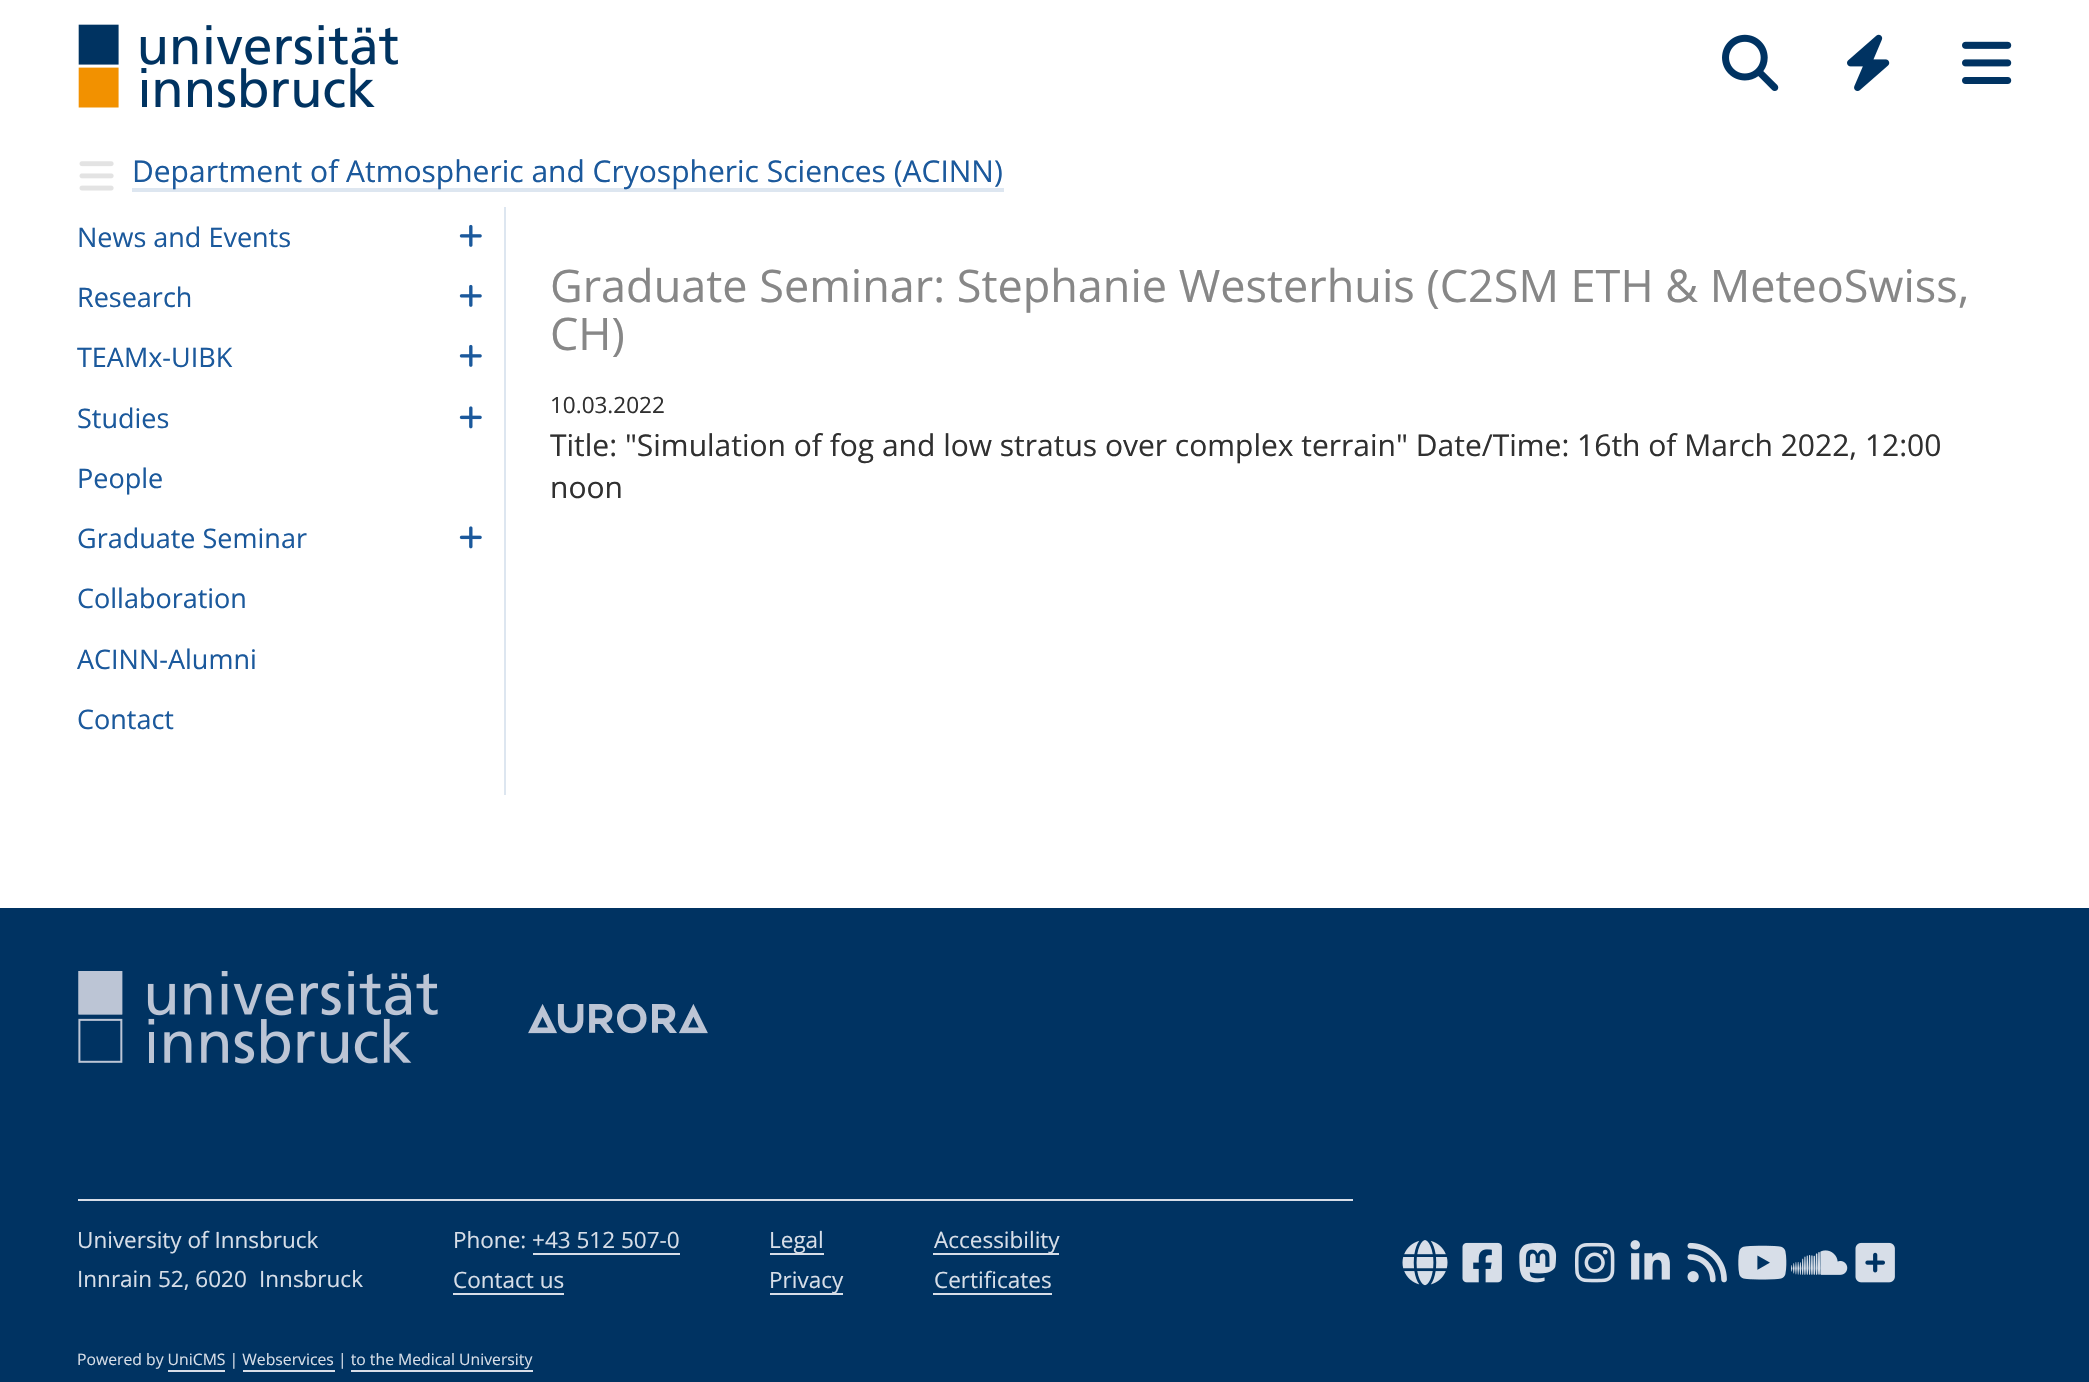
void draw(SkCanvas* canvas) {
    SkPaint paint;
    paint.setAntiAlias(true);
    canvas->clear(0xFFFFFFFF);
    canvas->drawImageRect(SkImages::DeferredFromEncodedData(SkData::MakeFromFileName("img1.png")), SkRect::MakeXYWH(78, 24, 320, 84), SkSamplingOptions());
    canvas->drawImageRect(SkImages::DeferredFromEncodedData(SkData::MakeFromFileName("img2.png")), SkRect::MakeXYWH(1722, 34, 57, 57), SkSamplingOptions());
    canvas->drawImageRect(SkImages::DeferredFromEncodedData(SkData::MakeFromFileName("img3.png")), SkRect::MakeXYWH(1847, 34, 43, 57), SkSamplingOptions());
    canvas->drawImageRect(SkImages::DeferredFromEncodedData(SkData::MakeFromFileName("img4.png")), SkRect::MakeXYWH(1962, 41, 50, 43), SkSamplingOptions());
    canvas->drawImageRect(SkImages::DeferredFromEncodedData(SkData::MakeFromFileName("img5.png")), SkRect::MakeXYWH(79, 161, 35, 30), SkSamplingOptions());
    paint.setColor(0xFFDDE6F0);
    canvas->drawRect(SkRect::MakeXYWH(132, 188, 872, 4), paint);
    SkFont font1(fontMgr->matchFamilyStyle("Open Sans", SkFontStyle::Normal()), 30);
    font1.setSubpixel(true);
    paint.setColor(0xFF1B599C);
    canvas->drawString("Department of Atmospheric and Cryospheric Sciences (ACINN)", 132, 182, font1, paint);
    paint.setColor(0xFFDDE6F0);
    canvas->drawRect(SkRect::MakeXYWH(504, 207, 2, 588), paint);
    SkFont font2(fontMgr->matchFamilyStyle("Open Sans", SkFontStyle::Normal()), 27);
    font2.setSubpixel(true);
    paint.setColor(0xFF1B599C);
    canvas->drawString("News and Events", 77, 247, font2, paint);
    canvas->drawImageRect(SkImages::DeferredFromEncodedData(SkData::MakeFromFileName("img6.png")), SkRect::MakeXYWH(459, 224, 23, 23), SkSamplingOptions());
    canvas->drawString("Research", 77, 307, font2, paint);
    canvas->drawImageRect(SkImages::DeferredFromEncodedData(SkData::MakeFromFileName("img6.png")), SkRect::MakeXYWH(459, 284, 23, 23), SkSamplingOptions());
    canvas->drawString("TEAMx-UIBK", 77, 367, font2, paint);
    canvas->drawImageRect(SkImages::DeferredFromEncodedData(SkData::MakeFromFileName("img6.png")), SkRect::MakeXYWH(459, 344, 23, 23), SkSamplingOptions());
    canvas->drawString("Studies", 77, 428, font2, paint);
    canvas->drawImageRect(SkImages::DeferredFromEncodedData(SkData::MakeFromFileName("img7.png")), SkRect::MakeXYWH(459, 406, 23, 23), SkSamplingOptions());
    canvas->drawString("People", 77, 488, font2, paint);
    canvas->drawString("Graduate Seminar", 77, 548, font2, paint);
    canvas->drawImageRect(SkImages::DeferredFromEncodedData(SkData::MakeFromFileName("img7.png")), SkRect::MakeXYWH(459, 526, 23, 23), SkSamplingOptions());
    canvas->drawString("Collaboration", 77, 608, font2, paint);
    canvas->drawString("ACINN-Alumni", 77, 669, font2, paint);
    canvas->drawString("Contact", 77, 729, font2, paint);
    SkFont font3(fontMgr->matchFamilyStyle("Open Sans", SkFontStyle::Normal()), 45);
    font3.setSubpixel(true);
    paint.setColor(0xFF878787);
    canvas->drawString("Graduate Seminar: Stephanie Westerhuis (C2SM ETH & MeteoSwiss,", 550, 302, font3, paint);
    canvas->drawString("CH)", 550, 350, font3, paint);
    SkFont font4(fontMgr->matchFamilyStyle("Open Sans", SkFontStyle::Normal()), 22.5f);
    font4.setSubpixel(true);
    paint.setColor(0xFF303030);
    canvas->drawString("10.03.2022", 550, 413, font4, paint);
    canvas->drawString("Title: \"Simulation of fog and low stratus over complex terrain\" Date/Time: 16th of March 2022, 12:00", 550, 456, font1, paint);
    canvas->drawString("noon", 550, 498, font1, paint);
    paint.setColor(0xFF003362);
    canvas->drawRect(SkRect::MakeXYWH(0, 908, 2089, 474), paint);
    canvas->drawImageRect(SkImages::DeferredFromEncodedData(SkData::MakeFromFileName("img8.png")), SkRect::MakeXYWH(78, 971, 360, 93), SkSamplingOptions());
    canvas->drawImageRect(SkImages::DeferredFromEncodedData(SkData::MakeFromFileName("img9.png")), SkRect::MakeXYWH(528, 1004, 180, 30), SkSamplingOptions());
    paint.setColor(0xFFD7DEE8);
    canvas->drawRect(SkRect::MakeXYWH(78, 1199, 1275, 2), paint);
    canvas->drawString("University of Innsbruck", 77, 1248, font4, paint);
    canvas->drawString("Innrain 52, 6020", 77, 1287, font4, paint);
    canvas->drawString("Innsbruck", 259, 1287, font4, paint);
    canvas->drawString("Phone: +43 512 507-0", 453, 1248, font4, paint);
    canvas->drawRect(SkRect::MakeXYWH(533, 1253, 147, 2), paint);
    canvas->drawString("Contact us", 453, 1288, font4, paint);
    canvas->drawRect(SkRect::MakeXYWH(453, 1293, 111, 2), paint);
    canvas->drawRect(SkRect::MakeXYWH(770, 1253, 54, 2), paint);
    canvas->drawString("Legal", 769, 1248, font4, paint);
    canvas->drawRect(SkRect::MakeXYWH(770, 1293, 73, 2), paint);
    canvas->drawString("Privacy", 769, 1288, font4, paint);
    canvas->drawRect(SkRect::MakeXYWH(933, 1253, 126, 2), paint);
    canvas->drawString("Accessibility", 934, 1248, font4, paint);
    canvas->drawString("Certificates", 934, 1288, font4, paint);
    canvas->drawRect(SkRect::MakeXYWH(933, 1293, 119, 2), paint);
    canvas->drawImageRect(SkImages::DeferredFromEncodedData(SkData::MakeFromFileName("img10.png")), SkRect::MakeXYWH(1402, 1240, 46, 46), SkSamplingOptions());
    canvas->drawImageRect(SkImages::DeferredFromEncodedData(SkData::MakeFromFileName("img11.png")), SkRect::MakeXYWH(1462, 1242, 40, 41), SkSamplingOptions());
    canvas->drawImageRect(SkImages::DeferredFromEncodedData(SkData::MakeFromFileName("img12.png")), SkRect::MakeXYWH(1519, 1242, 38, 41), SkSamplingOptions());
    canvas->drawImageRect(SkImages::DeferredFromEncodedData(SkData::MakeFromFileName("img13.png")), SkRect::MakeXYWH(1575, 1242, 40, 41), SkSamplingOptions());
    canvas->drawImageRect(SkImages::DeferredFromEncodedData(SkData::MakeFromFileName("img14.png")), SkRect::MakeXYWH(1630, 1240, 40, 40), SkSamplingOptions());
    canvas->drawImageRect(SkImages::DeferredFromEncodedData(SkData::MakeFromFileName("img15.png")), SkRect::MakeXYWH(1687, 1242, 40, 41), SkSamplingOptions());
    canvas->drawImageRect(SkImages::DeferredFromEncodedData(SkData::MakeFromFileName("img16.png")), SkRect::MakeXYWH(1738, 1245, 49, 35), SkSamplingOptions());
    canvas->drawImageRect(SkImages::DeferredFromEncodedData(SkData::MakeFromFileName("img17.png")), SkRect::MakeXYWH(1791, 1250, 57, 25), SkSamplingOptions());
    canvas->drawImageRect(SkImages::DeferredFromEncodedData(SkData::MakeFromFileName("img18.png")), SkRect::MakeXYWH(1855, 1242, 40, 41), SkSamplingOptions());
    SkFont font5(fontMgr->matchFamilyStyle("Open Sans", SkFontStyle::Normal()), 15.75f);
    font5.setSubpixel(true);
    canvas->drawString("Powered by UniCMS | Webservices | to the Medical University", 77, 1365, font5, paint);
    canvas->drawRect(SkRect::MakeXYWH(168, 1370, 57, 2), paint);
    canvas->drawRect(SkRect::MakeXYWH(243, 1370, 92, 2), paint);
    canvas->drawRect(SkRect::MakeXYWH(351, 1370, 182, 2), paint);
}
